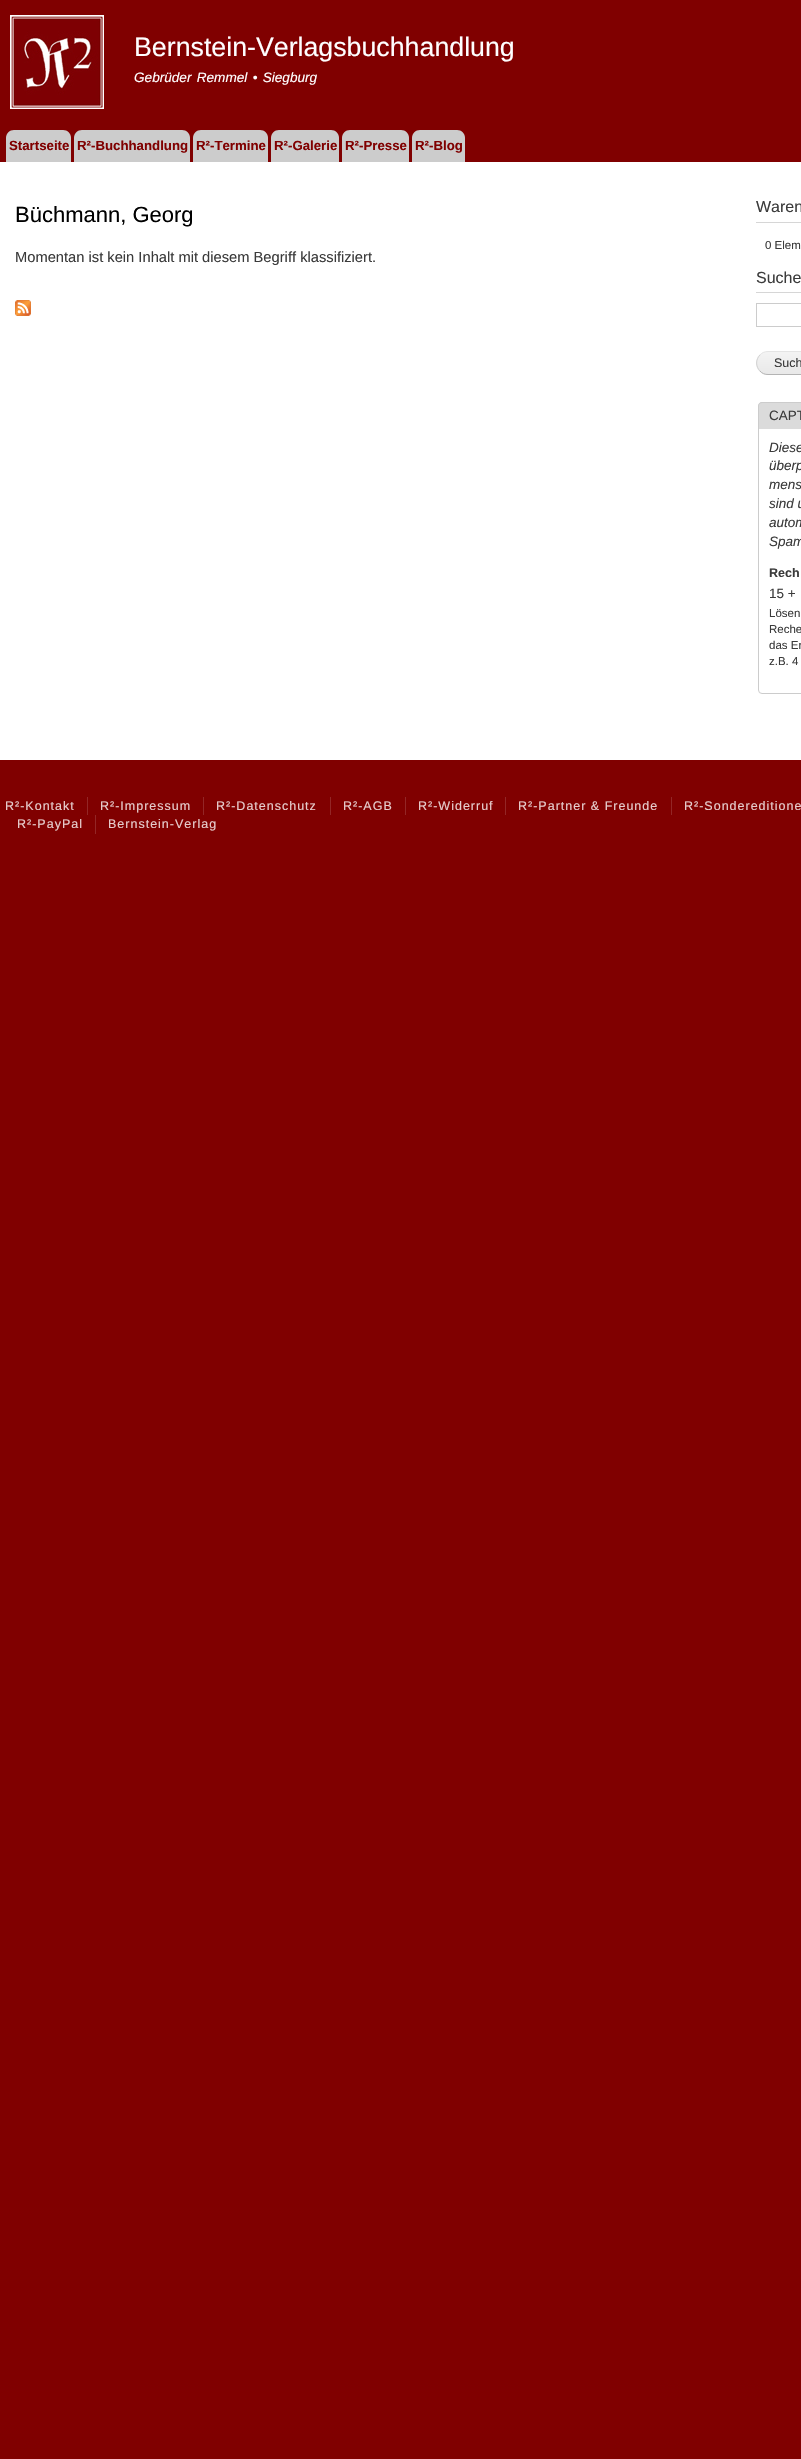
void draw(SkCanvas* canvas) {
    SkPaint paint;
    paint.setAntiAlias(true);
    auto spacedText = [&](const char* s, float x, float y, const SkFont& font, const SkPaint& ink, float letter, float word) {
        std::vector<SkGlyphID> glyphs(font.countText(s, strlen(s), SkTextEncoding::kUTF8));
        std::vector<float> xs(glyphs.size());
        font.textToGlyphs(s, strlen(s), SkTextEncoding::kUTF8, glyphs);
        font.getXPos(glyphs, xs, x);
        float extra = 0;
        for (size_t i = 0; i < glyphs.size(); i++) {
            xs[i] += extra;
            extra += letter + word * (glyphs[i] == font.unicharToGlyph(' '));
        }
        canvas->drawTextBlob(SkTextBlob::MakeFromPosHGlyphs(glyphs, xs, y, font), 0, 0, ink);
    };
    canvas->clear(0xFF800000);
    paint.setColor(0xFFFFFFFF);
    canvas->drawRect(SkRect::MakeXYWH(0, 162, 801, 598), paint);
    canvas->drawImageRect(SkImages::DeferredFromEncodedData(SkData::MakeFromFileName("img1.png")), SkRect::MakeXYWH(10, 15, 94, 94), SkSamplingOptions());
    SkFont font1(fontMgr->matchFamilyStyle("Liberation Sans", SkFontStyle::Normal()), 26.75f);
    font1.setSubpixel(true);
    paint.setColor(0xFFFFFEFF);
    canvas->drawString("Bernstein-Verlagsbuchhandlung", 134, 56, font1, paint);
    SkFont font2(fontMgr->matchFamilyStyle("Liberation Sans", SkFontStyle::Italic()), 13.6f);
    font2.setSubpixel(true);
    spacedText("Gebrüder Remmel • Siegburg", 134, 82, font2, paint, 0, 1.5f);
    paint.setColor(0xFFCCCCCC);
    canvas->drawPath(SkPathBuilder().moveTo(14, 130).lineTo(63, 130).cubicTo(67.5f, 130, 71, 133.5f, 71, 138).lineTo(71, 162).lineTo(6, 162).lineTo(6, 138).cubicTo(6, 133.5f, 9.5f, 130, 14, 130).close().detach(), paint);
    SkFont font3(fontMgr->matchFamilyStyle("Liberation Sans", SkFontStyle::Bold()), 13.25f);
    font3.setSubpixel(true);
    paint.setColor(0xFF800000);
    canvas->drawString("Startseite", 9, 150, font3, paint);
    paint.setColor(0xFFCCCCCC);
    canvas->drawPath(SkPathBuilder().moveTo(82, 130).lineTo(182, 130).cubicTo(186.5f, 130, 190, 133.5f, 190, 138).lineTo(190, 162).lineTo(74, 162).lineTo(74, 138).cubicTo(74, 133.5f, 77.5f, 130, 82, 130).close().detach(), paint);
    paint.setColor(0xFF800000);
    canvas->drawString("R²-Buchhandlung", 77, 150, font3, paint);
    paint.setColor(0xFFCCCCCC);
    canvas->drawPath(SkPathBuilder().moveTo(201, 130).lineTo(260, 130).cubicTo(264.5f, 130, 268, 133.5f, 268, 138).lineTo(268, 162).lineTo(193, 162).lineTo(193, 138).cubicTo(193, 133.5f, 196.5f, 130, 201, 130).close().detach(), paint);
    paint.setColor(0xFF800000);
    canvas->drawString("R²-Termine", 196, 150, font3, paint);
    paint.setColor(0xFFCCCCCC);
    canvas->drawPath(SkPathBuilder().moveTo(279, 130).lineTo(331, 130).cubicTo(335.5f, 130, 339, 133.5f, 339, 138).lineTo(339, 162).lineTo(271, 162).lineTo(271, 138).cubicTo(271, 133.5f, 274.5f, 130, 279, 130).close().detach(), paint);
    paint.setColor(0xFF800000);
    canvas->drawString("R²-Galerie", 274, 150, font3, paint);
    paint.setColor(0xFFCCCCCC);
    canvas->drawPath(SkPathBuilder().moveTo(350, 130).lineTo(401, 130).cubicTo(405.5f, 130, 409, 133.5f, 409, 138).lineTo(409, 162).lineTo(342, 162).lineTo(342, 138).cubicTo(342, 133.5f, 345.5f, 130, 350, 130).close().detach(), paint);
    paint.setColor(0xFF800000);
    canvas->drawString("R²-Presse", 345, 150, font3, paint);
    paint.setColor(0xFFCCCCCC);
    canvas->drawPath(SkPathBuilder().moveTo(420, 130).lineTo(457, 130).cubicTo(461.5f, 130, 465, 133.5f, 465, 138).lineTo(465, 162).lineTo(412, 162).lineTo(412, 138).cubicTo(412, 133.5f, 415.5f, 130, 420, 130).close().detach(), paint);
    paint.setColor(0xFF800000);
    canvas->drawString("R²-Blog", 415, 150, font3, paint);
    SkFont font4(fontMgr->matchFamilyStyle("Liberation Sans", SkFontStyle::Normal()), 22);
    font4.setSubpixel(true);
    paint.setColor(0xFF000000);
    canvas->drawString("Büchmann, Georg", 15, 222, font4, paint);
    SkFont font5(fontMgr->matchFamilyStyle("Liberation Sans", SkFontStyle::Normal()), 14.7f);
    font5.setSubpixel(true);
    paint.setColor(0xFF3B3B3B);
    canvas->drawString("Momentan ist kein Inhalt mit diesem Begriff klassifiziert.", 15, 262, font5, paint);
    canvas->drawImageRect(SkImages::DeferredFromEncodedData(SkData::MakeFromFileName("img2.png")), SkRect::MakeXYWH(15, 300, 16, 16), SkSamplingOptions());
    paint.setColor(0xFFD6D6D6);
    canvas->drawRect(SkRect::MakeXYWH(756, 222, 45, 1), paint);
    SkFont font6(fontMgr->matchFamilyStyle("Liberation Sans", SkFontStyle::Normal()), 16);
    font6.setSubpixel(true);
    paint.setColor(0xFF3B3B3B);
    canvas->drawString("Waren", 756, 212, font6, paint);
    SkFont font7(fontMgr->matchFamilyStyle("Liberation Sans", SkFontStyle::Normal()), 11.5f);
    font7.setSubpixel(true);
    canvas->drawString("0 Elem", 765, 249, font7, paint);
    paint.setColor(0xFFD6D6D6);
    canvas->drawRect(SkRect::MakeXYWH(756, 292, 45, 1), paint);
    paint.setColor(0xFF3B3B3B);
    canvas->drawString("Suche", 756, 283, font6, paint);
    paint.setStyle(SkPaint::kStroke_Style);
    paint.setStrokeWidth(1);
    paint.setColor(0xFFCCCCCC);
    canvas->drawRect(SkRect::MakeXYWH(756.5f, 303.5f, 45, 23), paint);
    canvas->drawImageRect(SkImages::DeferredFromEncodedData(SkData::MakeFromFileName("img3.png")), SkRect::MakeXYWH(756, 352, 45, 23), SkSamplingOptions());
    paint.setColor(0xFFE4E4E4);
    canvas->drawPath(SkPathBuilder().moveTo(760, 355).cubicTo(762, 352.5f, 765, 351.5f, 768, 351.5f).lineTo(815, 351.5f).cubicTo(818, 351.5f, 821, 352.5f, 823, 355).detach(), paint);
    paint.setColor(0xFFB4B4B4);
    canvas->drawPath(SkPathBuilder().moveTo(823, 371).cubicTo(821, 373.5f, 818, 374.5f, 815, 374.5f).lineTo(768, 374.5f).cubicTo(765, 374.5f, 762, 373.5f, 760, 371).detach(), paint);
    paint.setColor(0xFFD2D2D2);
    canvas->drawPath(SkPathBuilder().moveTo(760, 371).cubicTo(755.5f, 366.5f, 755.5f, 359.5f, 760, 355).detach(), paint);
    SkFont font8(fontMgr->matchFamilyStyle("Liberation Sans", SkFontStyle::Normal()), 12.5f);
    font8.setSubpixel(true);
    paint.setStyle(SkPaint::kFill_Style);
    paint.setColor(0xFF3B3B3B);
    canvas->drawString("Such", 774, 367, font8, paint);
    paint.setStyle(SkPaint::kStroke_Style);
    paint.setColor(0xFFCCCCCC);
    canvas->drawRoundRect(SkRect::MakeXYWH(758.5f, 413.5f, 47, 280), 3.5f, 3.5f, paint);
    paint.setStyle(SkPaint::kFill_Style);
    paint.setColor(0xFFDBDBDB);
    canvas->drawPath(SkPathBuilder().moveTo(762, 402).lineTo(801, 402).cubicTo(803, 402, 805, 404, 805, 406).lineTo(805, 429).lineTo(758, 429).lineTo(758, 406).cubicTo(758, 404, 760, 402, 762, 402).close().detach(), paint);
    paint.setColor(0xFFCCCCCC);
    canvas->drawPath(SkPathBuilder(SkPathFillType::kEvenOdd).moveTo(762, 402).lineTo(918, 402).cubicTo(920, 402, 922, 404, 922, 406).lineTo(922, 429).lineTo(758, 429).lineTo(758, 406).cubicTo(758, 404, 760, 402, 762, 402).close().moveTo(762, 403).lineTo(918, 403).cubicTo(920, 403, 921, 404, 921, 406).lineTo(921, 429).lineTo(759, 429).lineTo(759, 406).cubicTo(759, 404, 760, 403, 762, 403).close().detach(), paint);
    SkFont font9(fontMgr->matchFamilyStyle("Liberation Sans", SkFontStyle::Normal()), 13.5f);
    font9.setSubpixel(true);
    paint.setColor(0xFF3B3B3B);
    canvas->drawString("CAPT", 769, 420, font9, paint);
    SkFont font10(fontMgr->matchFamilyStyle("Liberation Sans", SkFontStyle::Italic()), 13.5f);
    font10.setSubpixel(true);
    canvas->drawString("Diese", 769, 452, font10, paint);
    canvas->drawString("überp", 769, 470, font10, paint);
    canvas->drawString("mens", 769, 489, font10, paint);
    canvas->drawString("sind u", 769, 508, font10, paint);
    canvas->drawString("autom", 769, 527, font10, paint);
    canvas->drawString("Spam", 769, 546, font10, paint);
    SkFont font11(fontMgr->matchFamilyStyle("Liberation Sans", SkFontStyle::Bold()), 12.5f);
    font11.setSubpixel(true);
    canvas->drawString("Rech", 769, 577, font11, paint);
    canvas->drawString("15 +", 769, 598, font9, paint);
    canvas->drawString("Lösen", 769, 617, font7, paint);
    canvas->drawString("Reche", 769, 633, font7, paint);
    canvas->drawString("das Er", 769, 649, font7, paint);
    canvas->drawString("z.B. 4", 769, 665, font7, paint);
    paint.setColor(0xFF932626);
    canvas->drawRect(SkRect::MakeXYWH(87, 797, 1, 18), paint);
    paint.setColor(0xFFE6CCCC);
    spacedText("R²-Kontakt", 5, 810, font8, paint, 1, 0);
    paint.setColor(0xFF932626);
    canvas->drawRect(SkRect::MakeXYWH(203, 797, 1, 18), paint);
    paint.setColor(0xFFE6CCCC);
    spacedText("R²-Impressum", 100, 810, font8, paint, 1, 0);
    paint.setColor(0xFF932626);
    canvas->drawRect(SkRect::MakeXYWH(330, 797, 1, 18), paint);
    paint.setColor(0xFFE6CCCC);
    spacedText("R²-Datenschutz", 216, 810, font8, paint, 1, 0);
    paint.setColor(0xFF932626);
    canvas->drawRect(SkRect::MakeXYWH(405, 797, 1, 18), paint);
    paint.setColor(0xFFE6CCCC);
    spacedText("R²-AGB", 343, 810, font8, paint, 1, 0);
    paint.setColor(0xFF932626);
    canvas->drawRect(SkRect::MakeXYWH(505, 797, 1, 18), paint);
    paint.setColor(0xFFE6CCCC);
    spacedText("R²-Widerruf", 418, 810, font8, paint, 1, 0);
    paint.setColor(0xFF932626);
    canvas->drawRect(SkRect::MakeXYWH(671, 797, 1, 18), paint);
    paint.setColor(0xFFE6CCCC);
    spacedText("R²-Partner & Freunde", 518, 810, font8, paint, 1, 0);
    spacedText("R²-Sondereditione", 684, 810, font8, paint, 1, 0);
    paint.setColor(0xFF932626);
    canvas->drawRect(SkRect::MakeXYWH(95, 815, 1, 19), paint);
    paint.setColor(0xFFE6CCCC);
    spacedText("R²-PayPal", 17, 828, font8, paint, 1, 0);
    spacedText("Bernstein-Verlag", 108, 828, font8, paint, 1, 0);
}
